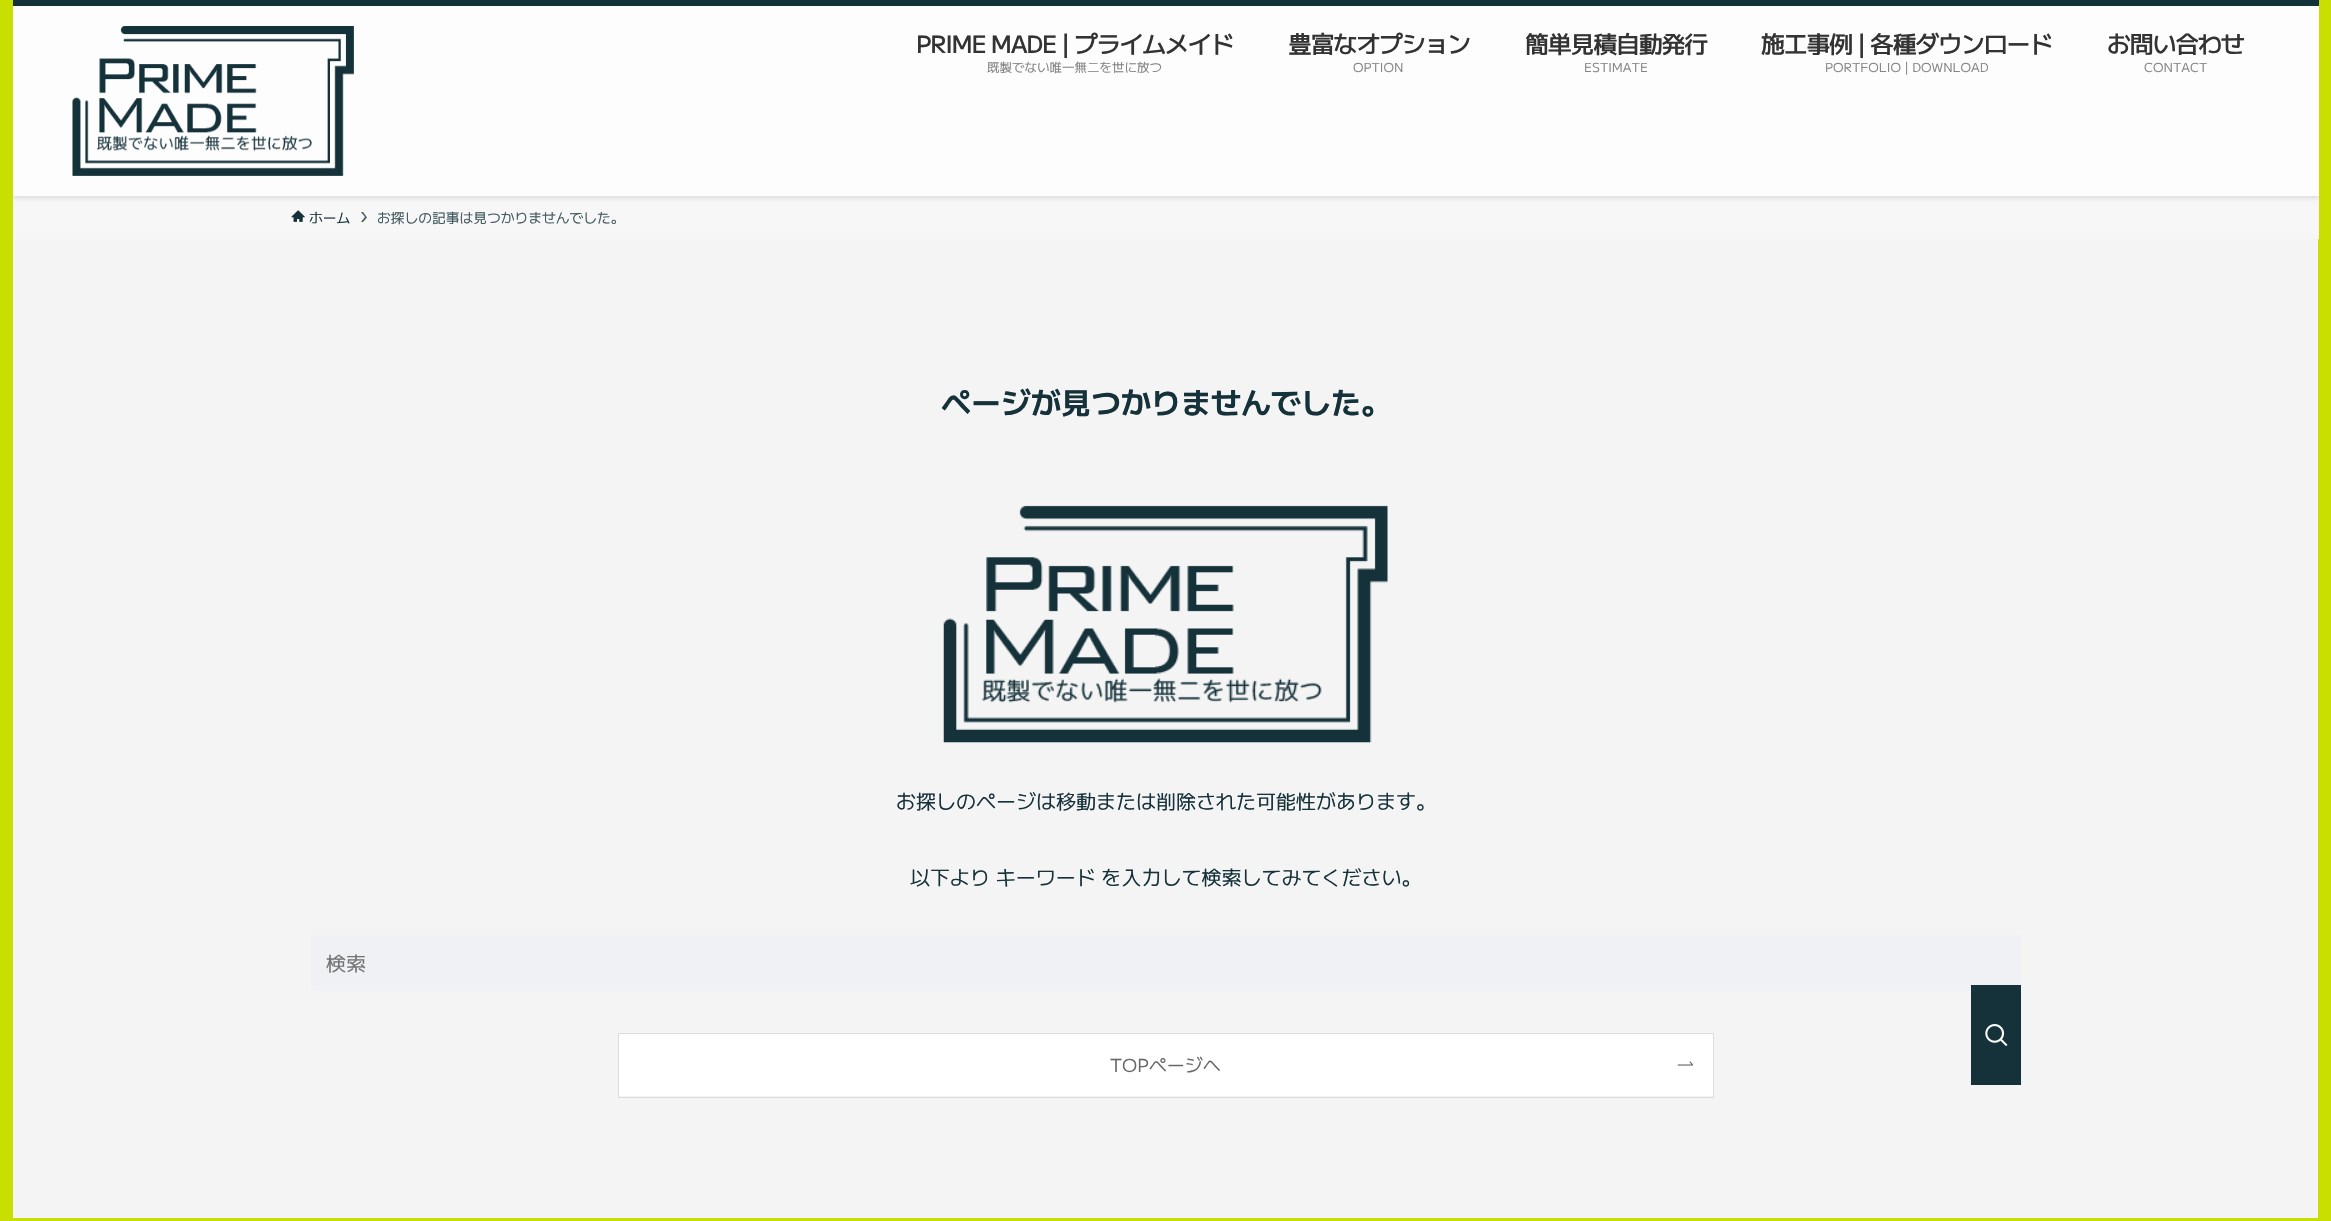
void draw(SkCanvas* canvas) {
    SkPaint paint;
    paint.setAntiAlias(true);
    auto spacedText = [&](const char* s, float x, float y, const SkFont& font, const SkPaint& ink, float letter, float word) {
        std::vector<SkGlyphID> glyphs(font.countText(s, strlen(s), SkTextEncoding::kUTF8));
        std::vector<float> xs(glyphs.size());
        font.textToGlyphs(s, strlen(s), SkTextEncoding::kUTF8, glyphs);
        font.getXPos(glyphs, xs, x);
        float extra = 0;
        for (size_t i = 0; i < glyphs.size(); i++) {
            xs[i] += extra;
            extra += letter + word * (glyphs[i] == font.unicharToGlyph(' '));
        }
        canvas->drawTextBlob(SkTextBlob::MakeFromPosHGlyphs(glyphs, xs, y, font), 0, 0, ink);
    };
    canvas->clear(0xFFF4F4F4);
    paint.setStyle(SkPaint::kStroke_Style);
    paint.setStrokeWidth(13);
    paint.setColor(0xFFC9DF01);
    canvas->drawRect(SkRect::MakeXYWH(6.5f, -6.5f, 2318, 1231), paint);
    paint.setStyle(SkPaint::kFill_Style);
    paint.setColor(0xFFF7F7F7);
    canvas->drawRect(SkRect::MakeXYWH(13, 196, 2306, 43), paint);
    canvas->save();
    canvas->clipRect(SkRect::MakeXYWH(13, 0, 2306, 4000));
    paint.setColor(0x1F000000);
    paint.setMaskFilter(SkMaskFilter::MakeBlur(kNormal_SkBlurStyle, 2.5f));
    canvas->drawRect(SkRect::MakeXYWH(13, -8, 2306, 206), paint);
    paint.setMaskFilter(nullptr);
    canvas->restore();
    paint.setColor(0xFFFDFDFD);
    canvas->drawRect(SkRect::MakeXYWH(13, 6, 2306, 190), paint);
    paint.setColor(0xFF15313A);
    canvas->drawRect(SkRect::MakeXYWH(13, 0, 2306, 6), paint);
    canvas->drawImageRect(SkImages::DeferredFromEncodedData(SkData::MakeFromFileName("img1.png")), SkRect::MakeXYWH(72, 26, 282, 150), SkSamplingOptions());
    SkFont font1(fontMgr->matchFamilyStyle("M PLUS 1", SkFontStyle(500, SkFontStyle::kNormal_Width, SkFontStyle::kUpright_Slant)), 24);
    font1.setSubpixel(true);
    paint.setColor(0xFF333333);
    spacedText("PRIME MADE | プライムメイド", 916, 53, font1, paint, -1.25f, 0);
    SkFont font2(fontMgr->matchFamilyStyle("M PLUS 1", SkFontStyle::Normal()), 12.5f);
    font2.setSubpixel(true);
    paint.setColor(0xFF848484);
    canvas->drawString("既製でない唯一無二を世に放つ", 987, 72, font2, paint);
    paint.setColor(0xFF333333);
    spacedText("豊富なオプション", 1288, 53, font1, paint, -1.25f, 0);
    paint.setColor(0xFF848484);
    canvas->drawString("OPTION", 1353, 72, font2, paint);
    paint.setColor(0xFF333333);
    spacedText("簡単見積自動発行", 1525, 53, font1, paint, -1.25f, 0);
    paint.setColor(0xFF848484);
    canvas->drawString("ESTIMATE", 1584, 72, font2, paint);
    paint.setColor(0xFF333333);
    spacedText("施工事例 | 各種ダウンロード", 1761, 53, font1, paint, -1.25f, 0);
    paint.setColor(0xFF848484);
    canvas->drawString("PORTFOLIO | DOWNLOAD", 1825, 72, font2, paint);
    paint.setColor(0xFF333333);
    spacedText("お問い合わせ", 2107, 53, font1, paint, -1.25f, 0);
    paint.setColor(0xFF848484);
    canvas->drawString("CONTACT", 2144, 72, font2, paint);
    canvas->drawImageRect(SkImages::DeferredFromEncodedData(SkData::MakeFromFileName("img2.png")), SkRect::MakeXYWH(291, 210, 14, 12), SkSamplingOptions());
    SkFont font3(fontMgr->matchFamilyStyle("M PLUS 1", SkFontStyle::Normal()), 13.75f);
    font3.setSubpixel(true);
    paint.setColor(0xFF15313A);
    canvas->drawString("ホーム", 309, 223, font3, paint);
    paint.setColor(0xFF425960);
    canvas->drawPath(SkPathBuilder().moveTo(363, 212).lineTo(361, 212).lineTo(365, 217).lineTo(361, 222).lineTo(363, 222).lineTo(367, 217.5f).close().detach(), paint);
    canvas->drawString("お探しの記事は見つかりませんでした。", 377, 223, font3, paint);
    SkFont font4(fontMgr->matchFamilyStyle("M PLUS 1", SkFontStyle::Bold()), 30);
    font4.setSubpixel(true);
    paint.setColor(0xFF15313A);
    canvas->drawString("ページが見つかりませんでした。", 941, 414, font4, paint);
    canvas->drawImageRect(SkImages::DeferredFromEncodedData(SkData::MakeFromFileName("img3.png")), SkRect::MakeXYWH(943, 505, 445, 238), SkSamplingOptions());
    SkFont font5(fontMgr->matchFamilyStyle("M PLUS 1", SkFontStyle::Normal()), 20);
    font5.setSubpixel(true);
    canvas->drawString("お探しのページは移動または削除された可能性があります。", 896, 809, font5, paint);
    canvas->drawString("以下より キーワード を入力して検索してみてください。", 910, 885, font5, paint);
    paint.setColor(0xFFEFF1F5);
    canvas->drawRoundRect(SkRect::MakeXYWH(311, 935, 1710, 56), 4, 4, paint);
    paint.setColor(0xFF757575);
    canvas->drawString("検索", 326, 971, font5, paint);
    paint.setColor(0xFF15313A);
    canvas->drawRect(SkRect::MakeXYWH(1971, 985, 50, 100), paint);
    canvas->drawImageRect(SkImages::DeferredFromEncodedData(SkData::MakeFromFileName("img4.png")), SkRect::MakeXYWH(1985, 1024, 23, 22), SkSamplingOptions());
    paint.setStyle(SkPaint::kStroke_Style);
    paint.setStrokeWidth(1);
    paint.setColor(0xFFDCDCDC);
    canvas->drawRect(SkRect::MakeXYWH(618.5f, 1033.5f, 1095, 64), paint);
    paint.setStyle(SkPaint::kFill_Style);
    paint.setColor(0xFFFFFFFF);
    canvas->drawRect(SkRect::MakeXYWH(619, 1034, 1094, 62), paint);
    SkFont font6(fontMgr->matchFamilyStyle("M PLUS 1", SkFontStyle::Normal()), 18);
    font6.setSubpixel(true);
    paint.setColor(0xFF666666);
    canvas->drawString("TOPページへ", 1110, 1072, font6, paint);
    canvas->drawImageRect(SkImages::DeferredFromEncodedData(SkData::MakeFromFileName("img5.png")), SkRect::MakeXYWH(1677, 1061, 17, 5), SkSamplingOptions());
}
